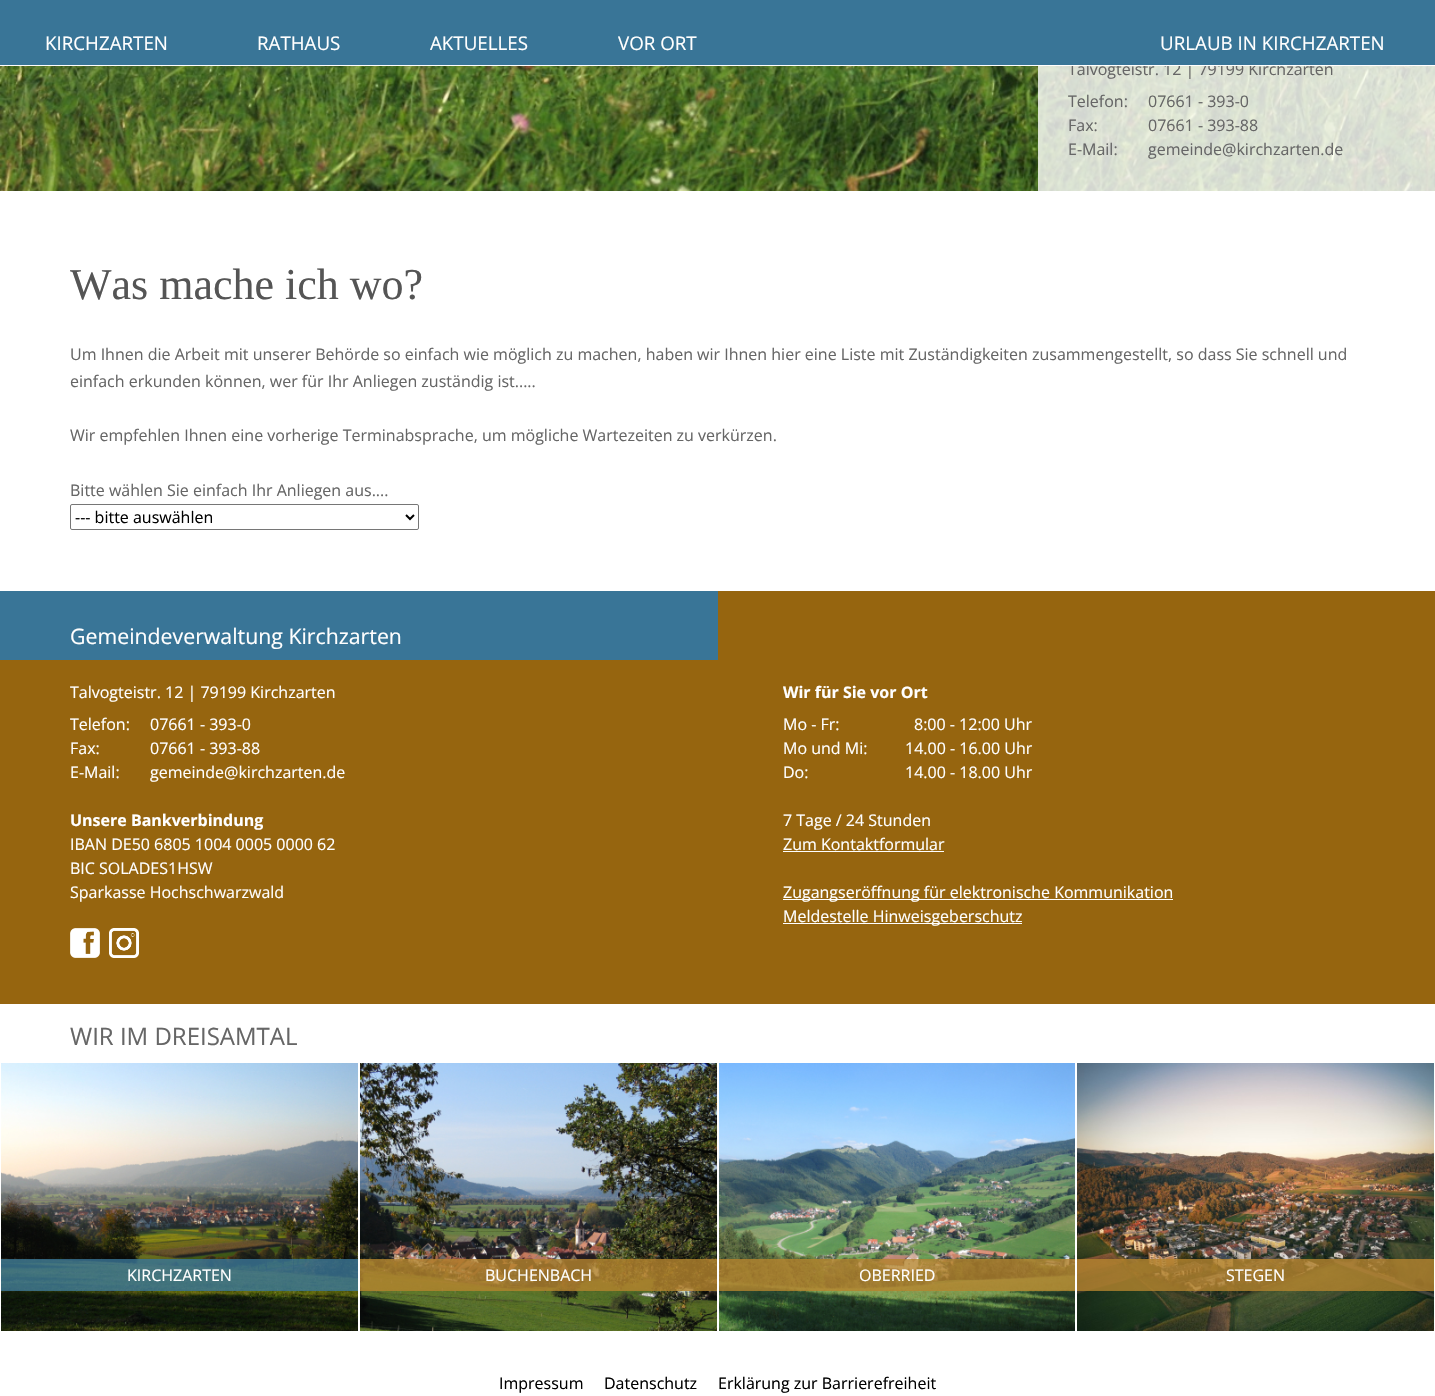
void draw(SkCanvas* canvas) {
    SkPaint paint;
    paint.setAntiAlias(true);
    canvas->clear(0xFFFFFFFF);
    canvas->drawImageRect(SkImages::DeferredFromEncodedData(SkData::MakeFromFileName("img1.png")), SkRect::MakeXYWH(0, 66, 1435, 125), SkSamplingOptions());
    paint.setColor(0xCCFFFFFF);
    canvas->drawRect(SkRect::MakeXYWH(1038, 66, 397, 125), paint);
    SkFont font1(fontMgr->matchFamilyStyle("Open Sans", SkFontStyle::Normal()), 16);
    font1.setSubpixel(true);
    paint.setColor(0xFF666666);
    canvas->drawString("Talvogteistr. 12 | 79199 Kirchzarten", 1068, 75, font1, paint);
    paint.setColor(0xFF397597);
    canvas->drawRect(SkRect::MakeXYWH(0, 0, 1435, 65), paint);
    paint.setColor(0xFFFFFFFF);
    canvas->drawRect(SkRect::MakeXYWH(1071, 65, 241, 1), paint);
    SkFont font2(fontMgr->matchFamilyStyle("Open Sans", SkFontStyle::Normal()), 18.75f);
    font2.setSubpixel(true);
    canvas->drawString("KIRCHZARTEN", 45, 50, font2, paint);
    canvas->drawString("RATHAUS", 257, 50, font2, paint);
    canvas->drawString("AKTUELLES", 430, 50, font2, paint);
    canvas->drawString("VOR ORT", 618, 50, font2, paint);
    canvas->drawString("URLAUB IN KIRCHZARTEN", 1160, 50, font2, paint);
    paint.setColor(0xFF666666);
    canvas->drawString("Telefon:", 1068, 107, font1, paint);
    canvas->drawString("07661 - 393-0", 1148, 107, font1, paint);
    canvas->drawString("Fax:", 1068, 131, font1, paint);
    canvas->drawString("07661 - 393-88", 1148, 131, font1, paint);
    canvas->drawString("E-Mail:", 1068, 155, font1, paint);
    canvas->drawString("gemeinde@kirchzarten.de", 1148, 155, font1, paint);
    SkFont font3(fontMgr->matchFamilyStyle("Liberation Serif", SkFontStyle::Normal()), 44);
    font3.setSubpixel(true);
    paint.setColor(0xFF555555);
    canvas->drawString("Was mache ich wo?", 70, 299, font3, paint);
    paint.setColor(0xFF666666);
    canvas->drawString("Um Ihnen die Arbeit mit unserer Behörde so einfach wie möglich zu machen, haben wir Ihnen hier eine Liste mit Zuständigkeiten zusammengestellt, so dass Sie schnell und", 70, 360, font1, paint);
    canvas->drawString("einfach erkunden können, wer für Ihr Anliegen zuständig ist.....", 70, 387, font1, paint);
    canvas->drawString("Wir empfehlen Ihnen eine vorherige Terminabsprache, um mögliche Wartezeiten zu verkürzen.", 70, 441, font1, paint);
    canvas->drawString("Bitte wählen Sie einfach Ihr Anliegen aus....", 70, 496, font1, paint);
    paint.setStyle(SkPaint::kStroke_Style);
    paint.setStrokeWidth(1);
    paint.setColor(0xFF767676);
    canvas->drawRoundRect(SkRect::MakeXYWH(70.5f, 504.5f, 348, 25), 1.5f, 1.5f, paint);
    paint.setStrokeWidth(2);
    paint.setColor(0xFF000000);
    canvas->drawPath(SkPathBuilder().moveTo(406, 515).lineTo(410, 519).lineTo(414, 515).detach(), paint);
    paint.setStyle(SkPaint::kFill_Style);
    canvas->drawString("--- bitte auswählen", 75, 523, font1, paint);
    paint.setColor(0xFF96650F);
    canvas->drawRect(SkRect::MakeXYWH(0, 591, 1435, 413), paint);
    paint.setColor(0xFF397597);
    canvas->drawRect(SkRect::MakeXYWH(0, 591, 718, 69), paint);
    SkFont font4(fontMgr->matchFamilyStyle("Open Sans", SkFontStyle::Normal()), 21.3f);
    font4.setSubpixel(true);
    paint.setColor(0xFFFFFFFF);
    canvas->drawString("Gemeindeverwaltung Kirchzarten", 70, 644, font4, paint);
    canvas->drawString("Talvogteistr. 12 | 79199 Kirchzarten", 70, 698, font1, paint);
    canvas->drawString("Telefon:", 70, 730, font1, paint);
    canvas->drawString("07661 - 393-0", 150, 730, font1, paint);
    canvas->drawString("Fax:", 70, 754, font1, paint);
    canvas->drawString("07661 - 393-88", 150, 754, font1, paint);
    canvas->drawString("E-Mail:", 70, 778, font1, paint);
    canvas->drawString("gemeinde@kirchzarten.de", 150, 778, font1, paint);
    SkFont font5(fontMgr->matchFamilyStyle("Open Sans", SkFontStyle::Bold()), 16);
    font5.setSubpixel(true);
    canvas->drawString("Unsere Bankverbindung", 70, 826, font5, paint);
    canvas->drawString("IBAN DE50 6805 1004 0005 0000 62", 70, 850, font1, paint);
    canvas->drawString("BIC SOLADES1HSW", 70, 874, font1, paint);
    canvas->drawString("Sparkasse Hochschwarzwald", 70, 898, font1, paint);
    canvas->drawImageRect(SkImages::DeferredFromEncodedData(SkData::MakeFromFileName("img2.png")), SkRect::MakeXYWH(70, 928, 30, 30), SkSamplingOptions());
    canvas->drawImageRect(SkImages::DeferredFromEncodedData(SkData::MakeFromFileName("img3.png")), SkRect::MakeXYWH(109, 928, 30, 30), SkSamplingOptions());
    canvas->drawString("Wir für Sie vor Ort", 783, 698, font5, paint);
    canvas->drawString("Mo - Fr:", 783, 730, font1, paint);
    canvas->drawString("8:00 - 12:00 Uhr", 914, 730, font1, paint);
    canvas->drawString("Mo und Mi:", 783, 754, font1, paint);
    canvas->drawString("14.00 - 16.00 Uhr", 905, 754, font1, paint);
    canvas->drawString("Do:", 783, 778, font1, paint);
    canvas->drawString("14.00 - 18.00 Uhr", 905, 778, font1, paint);
    canvas->drawString("7 Tage / 24 Stunden", 783, 826, font1, paint);
    canvas->drawString("Zum Kontaktformular", 783, 850, font1, paint);
    canvas->drawRect(SkRect::MakeXYWH(783, 851, 161, 1), paint);
    canvas->drawRect(SkRect::MakeXYWH(783, 899, 390, 1), paint);
    canvas->drawString("Zugangseröffnung für elektronische Kommunikation", 783, 898, font1, paint);
    canvas->drawRect(SkRect::MakeXYWH(783, 923, 239, 1), paint);
    canvas->drawString("Meldestelle Hinweisgeberschutz", 783, 922, font1, paint);
    SkFont font6(fontMgr->matchFamilyStyle("Open Sans", SkFontStyle::Normal()), 24);
    font6.setSubpixel(true);
    paint.setColor(0xFF666666);
    canvas->drawString("WIR IM DREISAMTAL", 70, 1045, font6, paint);
    canvas->drawImageRect(SkImages::DeferredFromEncodedData(SkData::MakeFromFileName("img4.png")), SkRect::MakeXYWH(1, 1063, 357, 268), SkSamplingOptions());
    paint.setColor(0xCC397597);
    canvas->drawRect(SkRect::MakeXYWH(1, 1259, 357, 32), paint);
    paint.setColor(0xFFFFFFFF);
    canvas->drawString("KIRCHZARTEN", 127, 1281, font1, paint);
    canvas->drawImageRect(SkImages::DeferredFromEncodedData(SkData::MakeFromFileName("img5.png")), SkRect::MakeXYWH(360, 1063, 357, 268), SkSamplingOptions());
    paint.setColor(0xCCB4832D);
    canvas->drawRect(SkRect::MakeXYWH(360, 1259, 357, 32), paint);
    paint.setColor(0xFFFFFFFF);
    canvas->drawString("BUCHENBACH", 485, 1281, font1, paint);
    canvas->drawImageRect(SkImages::DeferredFromEncodedData(SkData::MakeFromFileName("img6.png")), SkRect::MakeXYWH(719, 1063, 356, 268), SkSamplingOptions());
    paint.setColor(0xCCB4832D);
    canvas->drawRect(SkRect::MakeXYWH(719, 1259, 356, 32), paint);
    paint.setColor(0xFFFFFFFF);
    canvas->drawString("OBERRIED", 859, 1281, font1, paint);
    canvas->drawImageRect(SkImages::DeferredFromEncodedData(SkData::MakeFromFileName("img7.png")), SkRect::MakeXYWH(1077, 1063, 357, 268), SkSamplingOptions());
    paint.setColor(0xCCB4832D);
    canvas->drawRect(SkRect::MakeXYWH(1077, 1259, 357, 32), paint);
    paint.setColor(0xFFFFFFFF);
    canvas->drawString("STEGEN", 1226, 1281, font1, paint);
    paint.setColor(0xFF000000);
    canvas->drawString("Impressum", 499, 1389, font1, paint);
    canvas->drawString("Datenschutz", 604, 1389, font1, paint);
    canvas->drawString("Erklärung zur Barrierefreiheit", 718, 1389, font1, paint);
}
